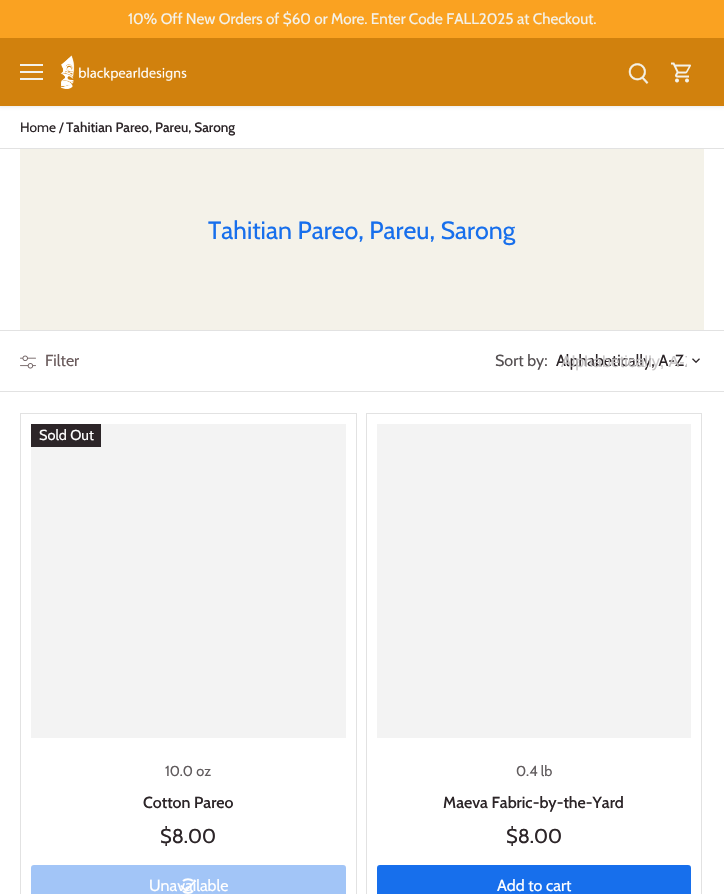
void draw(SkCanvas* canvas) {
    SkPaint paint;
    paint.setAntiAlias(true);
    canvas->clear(0xFFFFFFFF);
    paint.setColor(0x14000000);
    paint.setMaskFilter(SkMaskFilter::MakeBlur(kNormal_SkBlurStyle, 1.5f));
    canvas->drawRect(SkRect::MakeXYWH(-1, 37, 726, 70), paint);
    paint.setMaskFilter(nullptr);
    paint.setColor(0xFFFAA221);
    canvas->drawRect(SkRect::MakeXYWH(0, 0, 724, 38), paint);
    SkFont font1(fontMgr->matchFamilyStyle("Cabin", SkFontStyle::Normal()), 15.2f);
    font1.setSubpixel(true);
    paint.setColor(0xFFF4F2E9);
    canvas->drawString("10% Off New Orders of $60 or More. Enter Code FALL2025 at Checkout.", 128, 24, font1, paint);
    paint.setColor(0xFFD1810D);
    canvas->drawRect(SkRect::MakeXYWH(0, 38, 724, 68), paint);
    paint.setColor(0xFFF4F2E9);
    canvas->drawRect(SkRect::MakeXYWH(20, 64, 23, 2), paint);
    canvas->drawRect(SkRect::MakeXYWH(20, 71, 23, 2), paint);
    canvas->drawRect(SkRect::MakeXYWH(20, 78, 23, 2), paint);
    canvas->drawImageRect(SkImages::DeferredFromEncodedData(SkData::MakeFromFileName("img1.png")), SkRect::MakeXYWH(60, 55, 127, 34), SkSamplingOptions());
    canvas->drawImageRect(SkImages::DeferredFromEncodedData(SkData::MakeFromFileName("img2.png")), SkRect::MakeXYWH(628, 63, 21, 21), SkSamplingOptions());
    canvas->drawImageRect(SkImages::DeferredFromEncodedData(SkData::MakeFromFileName("img3.png")), SkRect::MakeXYWH(671, 62, 20, 21), SkSamplingOptions());
    paint.setColor(0xFFE2E2E2);
    canvas->drawRect(SkRect::MakeXYWH(0, 148, 724, 1), paint);
    SkFont font2(fontMgr->matchFamilyStyle("Cabin", SkFontStyle::Normal()), 13.6f);
    font2.setSubpixel(true);
    paint.setColor(0xFF2C2528);
    canvas->drawString("Home /", 20, 132, font2, paint);
    SkFont font3(fontMgr->matchFamilyStyle("Cabin", SkFontStyle(500, SkFontStyle::kNormal_Width, SkFontStyle::kUpright_Slant)), 13.6f);
    font3.setSubpixel(true);
    canvas->drawString("Tahitian Pareo, Pareu, Sarong", 66, 132, font3, paint);
    paint.setColor(0xFFF4F2E9);
    canvas->drawRect(SkRect::MakeXYWH(20, 149, 684, 181), paint);
    SkFont font4(fontMgr->matchFamilyStyle("Cabin", SkFontStyle::Normal()), 25);
    font4.setSubpixel(true);
    paint.setColor(0xFF176FEC);
    canvas->drawString("Tahitian Pareo, Pareu, Sarong", 208, 239, font4, paint);
    paint.setColor(0xFFE2E2E2);
    canvas->drawRect(SkRect::MakeXYWH(0, 330, 724, 1), paint);
    canvas->drawRect(SkRect::MakeXYWH(0, 391, 724, 1), paint);
    canvas->drawImageRect(SkImages::DeferredFromEncodedData(SkData::MakeFromFileName("img4.png")), SkRect::MakeXYWH(20, 355, 16, 14), SkSamplingOptions());
    SkFont font5(fontMgr->matchFamilyStyle("Cabin", SkFontStyle::Normal()), 16);
    font5.setSubpixel(true);
    paint.setColor(0xFF6A5B5C);
    canvas->drawString("Filter", 45, 366, font5, paint);
    paint.setColor(0xFF565153);
    canvas->drawString("Sort by:", 495, 366, font5, paint);
    paint.setColor(0xFF2C2528);
    canvas->drawString("Alphabetically, A-Z", 556, 366, font5, paint);
    canvas->save();
    canvas->clipRect(SkRect::MakeXYWH(561, 352, 126, 19));
    SkFont font6(fontMgr->matchFamilyStyle("Liberation Sans", SkFontStyle::Normal()), 16);
    font6.setSubpixel(true);
    paint.setColor(0xFFC6C4C5);
    canvas->drawString("Alphabetically, A-Z", 561, 367, font6, paint);
    canvas->restore();
    canvas->drawImageRect(SkImages::DeferredFromEncodedData(SkData::MakeFromFileName("img5.png")), SkRect::MakeXYWH(692, 358, 8, 5), SkSamplingOptions());
    paint.setStyle(SkPaint::kStroke_Style);
    paint.setStrokeWidth(1);
    paint.setColor(0xFFE2E2E2);
    canvas->drawRect(SkRect::MakeXYWH(20.5f, 413.5f, 336, 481), paint);
    paint.setStyle(SkPaint::kFill_Style);
    paint.setColor(0xFFF3F3F3);
    canvas->drawRect(SkRect::MakeXYWH(31, 424, 315, 314), paint);
    paint.setColor(0xFF2C2528);
    canvas->drawRect(SkRect::MakeXYWH(31, 424, 70, 23), paint);
    SkFont font7(fontMgr->matchFamilyStyle("Cabin", SkFontStyle::Normal()), 14.5f);
    font7.setSubpixel(true);
    paint.setColor(0xFFFFFFFF);
    canvas->drawString("Sold Out", 39, 440, font7, paint);
    paint.setColor(0xFF615C5E);
    canvas->drawString("10.0 oz", 165, 776, font7, paint);
    SkFont font8(fontMgr->matchFamilyStyle("Cabin", SkFontStyle(500, SkFontStyle::kNormal_Width, SkFontStyle::kUpright_Slant)), 16);
    font8.setSubpixel(true);
    paint.setColor(0xFF2C2528);
    canvas->drawString("Cotton Pareo", 143, 808, font8, paint);
    SkFont font9(fontMgr->matchFamilyStyle("Cabin", SkFontStyle::Normal()), 20);
    font9.setSubpixel(true);
    canvas->drawString("$8.00", 160, 843, font9, paint);
    paint.setColor(0xFFA2C5F7);
    canvas->drawRoundRect(SkRect::MakeXYWH(32, 866, 313, 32), 2, 2, paint);
    paint.setStyle(SkPaint::kStroke_Style);
    paint.setStrokeWidth(2);
    canvas->drawRoundRect(SkRect::MakeXYWH(32, 866, 313, 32), 2, 2, paint);
    paint.setColor(0xFFFFFFFF);
    canvas->drawPath(SkPathBuilder().moveTo(183, 881).cubicTo(185.5f, 878.5f, 190.5f, 878.5f, 193, 881).moveTo(193, 891).cubicTo(190.5f, 893.5f, 185.5f, 893.5f, 183, 891).detach(), paint);
    paint.setStyle(SkPaint::kFill_Style);
    canvas->drawString("Unavailable", 149, 891, font5, paint);
    canvas->drawPath(SkPathBuilder().moveTo(180, 886).lineTo(186, 892).lineTo(187, 890.5f).lineTo(181.5f, 885).close().detach(), paint);
    canvas->drawPath(SkPathBuilder().moveTo(184.5f, 890.5f).lineTo(186, 892).lineTo(196.5f, 881).lineTo(195, 880).close().detach(), paint);
    paint.setStyle(SkPaint::kStroke_Style);
    paint.setStrokeWidth(1);
    paint.setColor(0xFFE2E2E2);
    canvas->drawRect(SkRect::MakeXYWH(366.5f, 413.5f, 335, 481), paint);
    paint.setStyle(SkPaint::kFill_Style);
    paint.setColor(0xFFF3F3F3);
    canvas->drawRect(SkRect::MakeXYWH(377, 424, 314, 314), paint);
    paint.setColor(0xFF615C5E);
    canvas->drawString("0.4 lb", 516, 776, font7, paint);
    paint.setColor(0xFF2C2528);
    canvas->drawString("Maeva Fabric-by-the-Yard", 443, 808, font8, paint);
    canvas->drawString("$8.00", 506, 843, font9, paint);
    paint.setColor(0xFF176FEC);
    canvas->drawRoundRect(SkRect::MakeXYWH(378, 866, 312, 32), 2, 2, paint);
    paint.setStyle(SkPaint::kStroke_Style);
    paint.setStrokeWidth(2);
    canvas->drawRoundRect(SkRect::MakeXYWH(378, 866, 312, 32), 2, 2, paint);
    paint.setStyle(SkPaint::kFill_Style);
    paint.setColor(0xFFFFFFFF);
    canvas->drawString("Add to cart", 497, 891, font5, paint);
    paint.setStyle(SkPaint::kStroke_Style);
    paint.setColor(0xFF176FEC);
    canvas->drawPath(SkPathBuilder().moveTo(529, 881).cubicTo(531.5f, 878.5f, 536.5f, 878.5f, 539, 881).detach(), paint);
}
